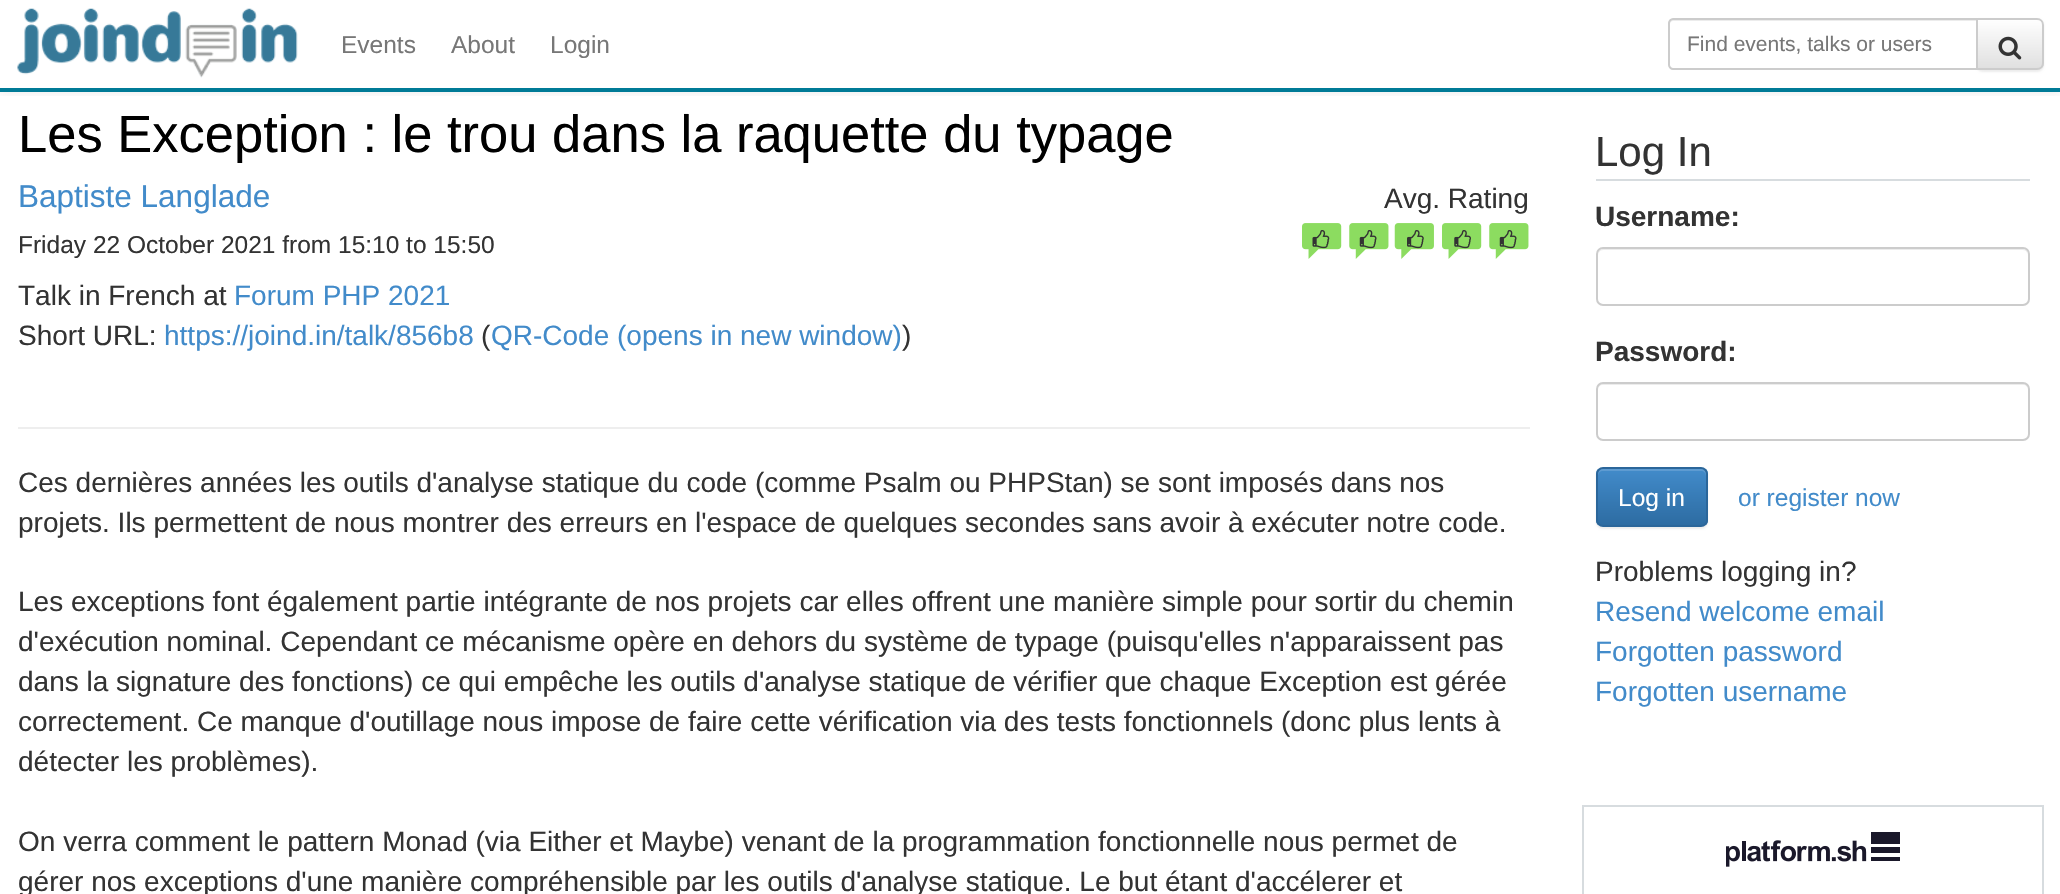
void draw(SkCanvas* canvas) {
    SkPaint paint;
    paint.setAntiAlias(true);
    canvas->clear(0xFFFFFFFF);
    canvas->save();
    canvas->clipRect(SkRect::MakeXYWH(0, 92, 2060, 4));
    paint.setColor(0x12000000);
    paint.setMaskFilter(SkMaskFilter::MakeBlur(kNormal_SkBlurStyle, 4.5f));
    canvas->drawRect(SkRect::MakeXYWH(0, 2, 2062, 91), paint);
    paint.setMaskFilter(nullptr);
    canvas->restore();
    paint.setColor(0xFF007B97);
    canvas->drawRect(SkRect::MakeXYWH(0, 88, 2060, 4), paint);
    canvas->drawImageRect(SkImages::DeferredFromEncodedData(SkData::MakeFromFileName("img1.png")), SkRect::MakeXYWH(17, 8, 281, 70), SkSamplingOptions());
    SkFont font1(fontMgr->matchFamilyStyle("Liberation Sans", SkFontStyle::Normal()), 24.5f);
    font1.setSubpixel(true);
    paint.setColor(0xFF777777);
    canvas->drawString("Events", 341, 53, font1, paint);
    canvas->drawString("About", 451, 53, font1, paint);
    canvas->drawString("Login", 550, 53, font1, paint);
    paint.setColor(0x12000000);
    paint.setMaskFilter(SkMaskFilter::MakeBlur(kNormal_SkBlurStyle, 1));
    canvas->drawRoundRect(SkRect::MakeXYWH(1976, 19, 68, 53), 7, 7, paint);
    paint.setMaskFilter(nullptr);
    canvas->save();
    canvas->clipPath(SkPathBuilder().moveTo(1976, 18).lineTo(2037, 18).cubicTo(2041, 18, 2044, 21, 2044, 25).lineTo(2044, 63).cubicTo(2044, 67, 2041, 70, 2037, 70).lineTo(1976, 70).close().detach(), true);
    {
        const SkColor colors[] = {0xFFFFFFFF, 0xFFE0E0E0};
        const float stops[] = {0, 1};
        const SkPoint ends[] = {{2010, 19}, {2010, 68}};
        paint.setShader(SkGradientShader::MakeLinear(ends, colors, stops, 2, SkTileMode::kClamp));
        paint.setAlpha(255);
    }
    canvas->drawRect(SkRect::MakeXYWH(1978, 19, 66, 49), paint);
    canvas->restore();
    paint.setStyle(SkPaint::kStroke_Style);
    paint.setStrokeWidth(2);
    paint.setShader(nullptr);
    paint.setColor(0xFFCCCCCC);
    canvas->drawPath(SkPathBuilder().moveTo(1977, 19).lineTo(2037, 19).cubicTo(2040.5f, 19, 2043, 21.5f, 2043, 25).lineTo(2043, 63).cubicTo(2043, 66.5f, 2040.5f, 69, 2037, 69).lineTo(1977, 69).close().detach(), paint);
    paint.setStyle(SkPaint::kFill_Style);
    paint.setColor(0xFFFFFFFF);
    canvas->drawPath(SkPathBuilder().moveTo(1673, 18).lineTo(1978, 18).lineTo(1978, 70).lineTo(1673, 70).cubicTo(1670, 70, 1668, 68, 1668, 65).lineTo(1668, 23).cubicTo(1668, 20, 1670, 18, 1673, 18).close().detach(), paint);
    paint.setColor(0xFFECECEC);
    canvas->drawPath(SkPathBuilder().moveTo(1673, 21).lineTo(1976, 21).lineTo(1976, 19).lineTo(1674, 19).cubicTo(1672, 19, 1670, 21, 1670, 23).lineTo(1670, 24).cubicTo(1670, 23, 1671, 21, 1673, 21).close().detach(), paint);
    paint.setStyle(SkPaint::kStroke_Style);
    paint.setColor(0xFFCCCCCC);
    canvas->drawPath(SkPathBuilder().moveTo(1673, 19).lineTo(1977, 19).lineTo(1977, 69).lineTo(1673, 69).cubicTo(1671, 69, 1669, 67, 1669, 65).lineTo(1669, 23).cubicTo(1669, 21, 1671, 19, 1673, 19).close().detach(), paint);
    SkFont font2(fontMgr->matchFamilyStyle("Liberation Sans", SkFontStyle::Normal()), 21);
    font2.setSubpixel(true);
    paint.setStyle(SkPaint::kFill_Style);
    paint.setColor(0xFF777777);
    canvas->drawString("Find events, talks or users", 1687, 51, font2, paint);
    canvas->drawImageRect(SkImages::DeferredFromEncodedData(SkData::MakeFromFileName("img2.png")), SkRect::MakeXYWH(1998, 36, 24, 24), SkSamplingOptions());
    paint.setColor(0xFFEEEEEE);
    canvas->drawRect(SkRect::MakeXYWH(18, 427, 1512, 2), paint);
    SkFont font3(fontMgr->matchFamilyStyle("Liberation Sans", SkFontStyle::Normal()), 52.5f);
    font3.setSubpixel(true);
    paint.setColor(0xFF000000);
    canvas->drawString("Les Exception : le trou dans la raquette du typage", 18, 152, font3, paint);
    SkFont font4(fontMgr->matchFamilyStyle("Liberation Sans", SkFontStyle::Normal()), 31.5f);
    font4.setSubpixel(true);
    paint.setColor(0xFF428BCA);
    canvas->drawString("Baptiste Langlade", 18, 207, font4, paint);
    paint.setColor(0xFF333333);
    canvas->drawString("Friday 22 October 2021 from 15:10 to 15:50", 18, 253, font1, paint);
    SkFont font5(fontMgr->matchFamilyStyle("Liberation Sans", SkFontStyle::Normal()), 28);
    font5.setSubpixel(true);
    canvas->drawString("Talk in French at", 18, 305, font5, paint);
    paint.setColor(0xFF428BCA);
    canvas->drawString("Forum PHP 2021", 234, 305, font5, paint);
    paint.setColor(0xFF333333);
    canvas->drawString("Short URL:", 18, 345, font5, paint);
    paint.setColor(0xFF428BCA);
    canvas->drawString("https://joind.in/talk/856b8", 164, 345, font5, paint);
    paint.setColor(0xFF333333);
    canvas->drawString("(", 481, 345, font5, paint);
    paint.setColor(0xFF428BCA);
    canvas->drawString("QR-Code (opens in new window)", 491, 345, font5, paint);
    paint.setColor(0xFF333333);
    canvas->drawString(")", 902, 345, font5, paint);
    canvas->drawString("Avg. Rating", 1384, 208, font5, paint);
    canvas->drawImageRect(SkImages::DeferredFromEncodedData(SkData::MakeFromFileName("img3.png")), SkRect::MakeXYWH(1302, 223, 40, 36), SkSamplingOptions());
    canvas->drawImageRect(SkImages::DeferredFromEncodedData(SkData::MakeFromFileName("img4.png")), SkRect::MakeXYWH(1312, 230, 18, 19), SkSamplingOptions());
    canvas->drawImageRect(SkImages::DeferredFromEncodedData(SkData::MakeFromFileName("img5.png")), SkRect::MakeXYWH(1349, 223, 40, 36), SkSamplingOptions());
    canvas->drawImageRect(SkImages::DeferredFromEncodedData(SkData::MakeFromFileName("img6.png")), SkRect::MakeXYWH(1359, 230, 18, 19), SkSamplingOptions());
    canvas->drawImageRect(SkImages::DeferredFromEncodedData(SkData::MakeFromFileName("img7.png")), SkRect::MakeXYWH(1394, 223, 40, 36), SkSamplingOptions());
    canvas->drawImageRect(SkImages::DeferredFromEncodedData(SkData::MakeFromFileName("img8.png")), SkRect::MakeXYWH(1407, 230, 17, 19), SkSamplingOptions());
    canvas->drawImageRect(SkImages::DeferredFromEncodedData(SkData::MakeFromFileName("img3.png")), SkRect::MakeXYWH(1442, 223, 40, 36), SkSamplingOptions());
    canvas->drawImageRect(SkImages::DeferredFromEncodedData(SkData::MakeFromFileName("img9.png")), SkRect::MakeXYWH(1454, 230, 17, 19), SkSamplingOptions());
    canvas->drawImageRect(SkImages::DeferredFromEncodedData(SkData::MakeFromFileName("img5.png")), SkRect::MakeXYWH(1489, 223, 40, 36), SkSamplingOptions());
    canvas->drawImageRect(SkImages::DeferredFromEncodedData(SkData::MakeFromFileName("img6.png")), SkRect::MakeXYWH(1499, 230, 18, 19), SkSamplingOptions());
    canvas->drawString("Ces dernières années les outils d'analyse statique du code (comme Psalm ou PHPStan) se sont imposés dans nos", 18, 492, font5, paint);
    canvas->drawString("projets. Ils permettent de nous montrer des erreurs en l'espace de quelques secondes sans avoir à exécuter notre code.", 18, 532, font5, paint);
    canvas->drawString("Les exceptions font également partie intégrante de nos projets car elles offrent une manière simple pour sortir du chemin", 18, 611, font5, paint);
    canvas->drawString("d'exécution nominal. Cependant ce mécanisme opère en dehors du système de typage (puisqu'elles n'apparaissent pas", 18, 651, font5, paint);
    canvas->drawString("dans la signature des fonctions) ce qui empêche les outils d'analyse statique de vérifier que chaque Exception est gérée", 18, 691, font5, paint);
    canvas->drawString("correctement. Ce manque d'outillage nous impose de faire cette vérification via des tests fonctionnels (donc plus lents à", 18, 731, font5, paint);
    canvas->drawString("détecter les problèmes).", 18, 771, font5, paint);
    canvas->drawString("On verra comment le pattern Monad (via Either et Maybe) venant de la programmation fonctionnelle nous permet de", 18, 851, font5, paint);
    canvas->drawString("gérer nos exceptions d'une manière compréhensible par les outils d'analyse statique. Le but étant d'accélerer et", 18, 891, font5, paint);
    paint.setColor(0xFFD7DCDF);
    canvas->drawRect(SkRect::MakeXYWH(1596, 179, 434, 2), paint);
    SkFont font6(fontMgr->matchFamilyStyle("Liberation Sans", SkFontStyle::Normal()), 42);
    font6.setSubpixel(true);
    paint.setColor(0xFF333333);
    canvas->drawString("Log In", 1595, 166, font6, paint);
    SkFont font7(fontMgr->matchFamilyStyle("Liberation Sans", SkFontStyle::Bold()), 28);
    font7.setSubpixel(true);
    canvas->drawString("Username:", 1595, 226, font7, paint);
    paint.setColor(0xFFECECEC);
    canvas->drawPath(SkPathBuilder().moveTo(1603, 250).lineTo(2023, 250).cubicTo(2026, 250, 2028, 253, 2028, 256).cubicTo(2028, 253, 2027, 249, 2023, 249).lineTo(1603, 249).cubicTo(1599, 249, 1598, 253, 1598, 256).cubicTo(1598, 253, 1600, 250, 1603, 250).close().detach(), paint);
    paint.setStyle(SkPaint::kStroke_Style);
    paint.setColor(0xFFCCCCCC);
    canvas->drawRoundRect(SkRect::MakeXYWH(1597, 248, 432, 57), 6, 6, paint);
    paint.setStyle(SkPaint::kFill_Style);
    paint.setColor(0xFF333333);
    canvas->drawString("Password:", 1595, 361, font7, paint);
    paint.setColor(0xFFECECEC);
    canvas->drawPath(SkPathBuilder().moveTo(1603, 385).lineTo(2023, 385).cubicTo(2026, 385, 2028, 387, 2028, 390).cubicTo(2028, 387, 2027, 383, 2023, 383).lineTo(1603, 383).cubicTo(1599, 383, 1598, 387, 1598, 390).cubicTo(1598, 387, 1600, 385, 1603, 385).close().detach(), paint);
    paint.setStyle(SkPaint::kStroke_Style);
    paint.setColor(0xFFCCCCCC);
    canvas->drawRoundRect(SkRect::MakeXYWH(1597, 383, 432, 57), 6, 6, paint);
    paint.setStyle(SkPaint::kFill_Style);
    paint.setColor(0x12000000);
    paint.setMaskFilter(SkMaskFilter::MakeBlur(kNormal_SkBlurStyle, 1));
    canvas->drawRoundRect(SkRect::MakeXYWH(1596, 469, 112, 60), 7, 7, paint);
    paint.setMaskFilter(nullptr);
    canvas->save();
    canvas->clipPath(SkPathBuilder().moveTo(1603, 467).lineTo(1701, 467).cubicTo(1705, 467, 1708, 470, 1708, 474).lineTo(1708, 520).cubicTo(1708, 524, 1705, 527, 1701, 527).lineTo(1603, 527).cubicTo(1599, 527, 1596, 524, 1596, 520).lineTo(1596, 474).cubicTo(1596, 470, 1599, 467, 1603, 467).close().detach(), true);
    {
        const SkColor colors[] = {0xFF428BCA, 0xFF2D6CA2};
        const float stops[] = {0, 1};
        const SkPoint ends[] = {{1652, 469}, {1652, 525}};
        paint.setShader(SkGradientShader::MakeLinear(ends, colors, stops, 2, SkTileMode::kClamp));
        paint.setAlpha(255);
    }
    canvas->drawRect(SkRect::MakeXYWH(1596, 469, 112, 56), paint);
    canvas->restore();
    paint.setShader(nullptr);
    paint.setColor(0x26FFFFFF);
    canvas->drawPath(SkPathBuilder().moveTo(1603, 471).lineTo(1701, 471).cubicTo(1704, 471, 1706, 473, 1706, 476).lineTo(1706, 474).cubicTo(1706, 471, 1704, 469, 1701, 469).lineTo(1603, 469).cubicTo(1600, 469, 1598, 471, 1598, 474).lineTo(1598, 476).cubicTo(1598, 473, 1600, 471, 1603, 471).close().detach(), paint);
    paint.setStyle(SkPaint::kStroke_Style);
    paint.setColor(0xFF2B669A);
    canvas->drawRoundRect(SkRect::MakeXYWH(1597, 468, 110, 58), 6, 6, paint);
    paint.setStyle(SkPaint::kFill_Style);
    paint.setColor(0xFFFFFFFF);
    canvas->drawString("Log in", 1618, 506, font1, paint);
    paint.setColor(0xFF428BCA);
    canvas->drawString("or register now", 1738, 506, font1, paint);
    paint.setColor(0xFF333333);
    canvas->drawString("Problems logging in?", 1595, 581, font5, paint);
    paint.setColor(0xFF428BCA);
    canvas->drawString("Resend welcome email", 1595, 621, font5, paint);
    canvas->drawString("Forgotten password", 1595, 661, font5, paint);
    canvas->drawString("Forgotten username", 1595, 701, font5, paint);
    paint.setStyle(SkPaint::kStroke_Style);
    paint.setColor(0xFFD7DCDF);
    canvas->drawRect(SkRect::MakeXYWH(1583, 806, 460, 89), paint);
    canvas->drawImageRect(SkImages::DeferredFromEncodedData(SkData::MakeFromFileName("img10.png")), SkRect::MakeXYWH(1726, 832, 174, 35), SkSamplingOptions());
}
